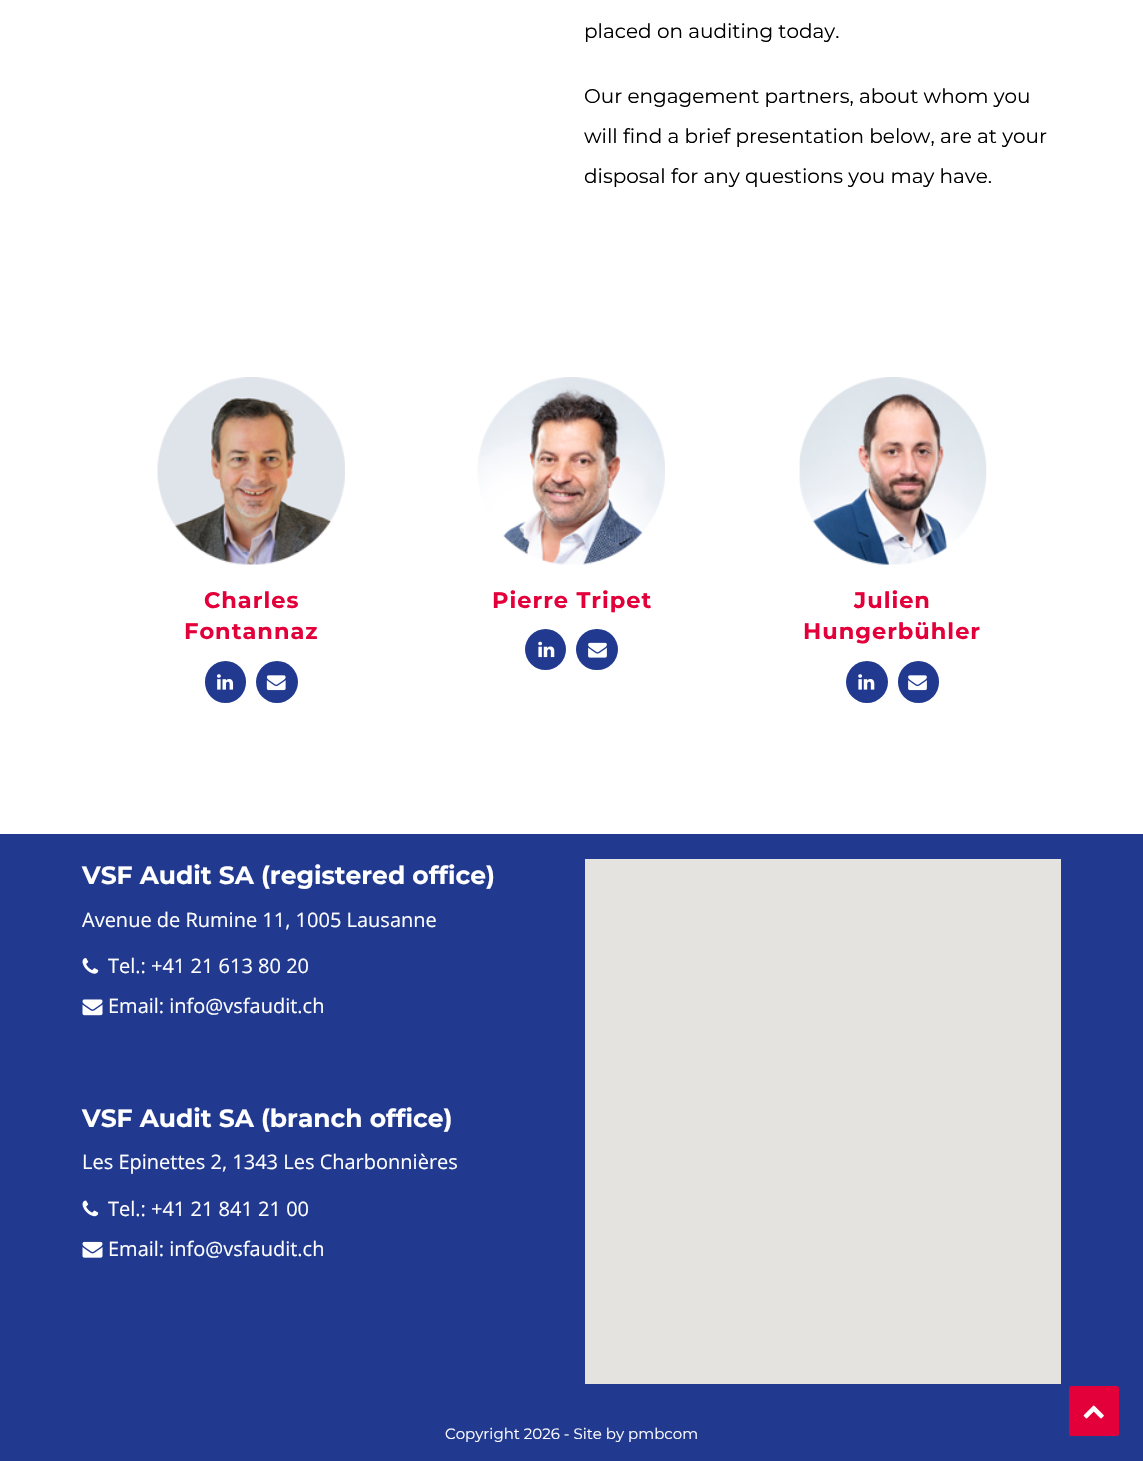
void draw(SkCanvas* canvas) {
    SkPaint paint;
    paint.setAntiAlias(true);
    auto spacedText = [&](const char* s, float x, float y, const SkFont& font, const SkPaint& ink, float letter, float word) {
        std::vector<SkGlyphID> glyphs(font.countText(s, strlen(s), SkTextEncoding::kUTF8));
        std::vector<float> xs(glyphs.size());
        font.textToGlyphs(s, strlen(s), SkTextEncoding::kUTF8, glyphs);
        font.getXPos(glyphs, xs, x);
        float extra = 0;
        for (size_t i = 0; i < glyphs.size(); i++) {
            xs[i] += extra;
            extra += letter + word * (glyphs[i] == font.unicharToGlyph(' '));
        }
        canvas->drawTextBlob(SkTextBlob::MakeFromPosHGlyphs(glyphs, xs, y, font), 0, 0, ink);
    };
    canvas->clear(0xFFFFFFFF);
    SkFont font1(fontMgr->matchFamilyStyle("Montserrat", SkFontStyle::Normal()), 20);
    font1.setSubpixel(true);
    paint.setColor(0xFF000000);
    canvas->drawString("placed on auditing today.", 584, 38, font1, paint);
    canvas->drawString("Our engagement partners, about whom you", 584, 103, font1, paint);
    canvas->drawString("will find a brief presentation below, are at your", 584, 143, font1, paint);
    canvas->drawString("disposal for any questions you may have.", 584, 183, font1, paint);
    canvas->drawImageRect(SkImages::DeferredFromEncodedData(SkData::MakeFromFileName("img1.png")), SkRect::MakeXYWH(157, 377, 188, 188), SkSamplingOptions());
    SkFont font2(fontMgr->matchFamilyStyle("Montserrat", SkFontStyle::Bold()), 22.5f);
    font2.setSubpixel(true);
    paint.setColor(0xFFE3003A);
    spacedText("Charles", 204, 608, font2, paint, 1, 0);
    spacedText("Fontannaz", 184, 639, font2, paint, 1, 0);
    paint.setColor(0xFF213A8F);
    canvas->drawRoundRect(SkRect::MakeXYWH(205, 661, 41, 42), 20.5f, 20.5f, paint);
    canvas->drawImageRect(SkImages::DeferredFromEncodedData(SkData::MakeFromFileName("img2.png")), SkRect::MakeXYWH(217, 674, 17, 16), SkSamplingOptions());
    canvas->drawCircle(277, 682, 21, paint);
    canvas->drawImageRect(SkImages::DeferredFromEncodedData(SkData::MakeFromFileName("img3.png")), SkRect::MakeXYWH(266, 675, 20, 16), SkSamplingOptions());
    canvas->drawImageRect(SkImages::DeferredFromEncodedData(SkData::MakeFromFileName("img4.png")), SkRect::MakeXYWH(477, 377, 188, 188), SkSamplingOptions());
    paint.setColor(0xFFE3003A);
    spacedText("Pierre Tripet", 492, 608, font2, paint, 1, 0);
    paint.setColor(0xFF213A8F);
    canvas->drawCircle(545.5f, 649.5f, 20.5f, paint);
    canvas->drawImageRect(SkImages::DeferredFromEncodedData(SkData::MakeFromFileName("img5.png")), SkRect::MakeXYWH(538, 641, 17, 17), SkSamplingOptions());
    canvas->drawRoundRect(SkRect::MakeXYWH(576, 629, 42, 41), 20.5f, 20.5f, paint);
    canvas->drawImageRect(SkImages::DeferredFromEncodedData(SkData::MakeFromFileName("img6.png")), SkRect::MakeXYWH(588, 642, 19, 16), SkSamplingOptions());
    canvas->drawImageRect(SkImages::DeferredFromEncodedData(SkData::MakeFromFileName("img7.png")), SkRect::MakeXYWH(799, 377, 188, 188), SkSamplingOptions());
    paint.setColor(0xFFE3003A);
    spacedText("Julien", 854, 608, font2, paint, 1, 0);
    spacedText("Hungerbühler", 803, 639, font2, paint, 1, 0);
    paint.setColor(0xFF213A8F);
    canvas->drawCircle(867, 682, 21, paint);
    canvas->drawImageRect(SkImages::DeferredFromEncodedData(SkData::MakeFromFileName("img8.png")), SkRect::MakeXYWH(858, 674, 17, 16), SkSamplingOptions());
    canvas->drawRoundRect(SkRect::MakeXYWH(898, 661, 41, 42), 20.5f, 20.5f, paint);
    canvas->drawImageRect(SkImages::DeferredFromEncodedData(SkData::MakeFromFileName("img9.png")), SkRect::MakeXYWH(908, 675, 19, 16), SkSamplingOptions());
    canvas->drawRect(SkRect::MakeXYWH(0, 834, 1143, 627), paint);
    SkFont font3(fontMgr->matchFamilyStyle("Montserrat", SkFontStyle::Bold()), 25);
    font3.setSubpixel(true);
    paint.setColor(0xFFFFFFFF);
    canvas->drawString("VSF Audit SA (registered office)", 82, 884, font3, paint);
    SkFont font4(fontMgr->matchFamilyStyle("Open Sans", SkFontStyle::Normal()), 20);
    font4.setSubpixel(true);
    canvas->drawString("Avenue de Rumine 11, 1005 Lausanne", 82, 927, font4, paint);
    canvas->drawImageRect(SkImages::DeferredFromEncodedData(SkData::MakeFromFileName("img10.png")), SkRect::MakeXYWH(82, 958, 17, 16), SkSamplingOptions());
    canvas->drawString("Tel.: +41 21 613 80 20", 108, 973, font4, paint);
    canvas->drawImageRect(SkImages::DeferredFromEncodedData(SkData::MakeFromFileName("img11.png")), SkRect::MakeXYWH(82, 999, 21, 17), SkSamplingOptions());
    canvas->drawString("Email: info@vsfaudit.ch", 108, 1013, font4, paint);
    canvas->drawString("VSF Audit SA (branch office)", 82, 1127, font3, paint);
    canvas->drawString("Les Epinettes 2, 1343 Les Charbonnières", 82, 1169, font4, paint);
    canvas->drawImageRect(SkImages::DeferredFromEncodedData(SkData::MakeFromFileName("img12.png")), SkRect::MakeXYWH(82, 1200, 17, 17), SkSamplingOptions());
    canvas->drawString("Tel.: +41 21 841 21 00", 108, 1216, font4, paint);
    canvas->drawImageRect(SkImages::DeferredFromEncodedData(SkData::MakeFromFileName("img13.png")), SkRect::MakeXYWH(82, 1241, 21, 17), SkSamplingOptions());
    canvas->drawString("Email: info@vsfaudit.ch", 108, 1256, font4, paint);
    paint.setColor(0xFFE5E3DF);
    canvas->drawRect(SkRect::MakeXYWH(585, 859, 476, 525), paint);
    SkFont font5(fontMgr->matchFamilyStyle("Montserrat", SkFontStyle::Normal()), 15);
    font5.setSubpixel(true);
    paint.setColor(0xFFFFFFFF);
    canvas->drawString("Copyright 2026 - Site by pmbcom", 445, 1439, font5, paint);
    paint.setColor(0xFFE3003A);
    canvas->drawRoundRect(SkRect::MakeXYWH(1069, 1386, 50, 50), 2.5f, 2.5f, paint);
    canvas->drawImageRect(SkImages::DeferredFromEncodedData(SkData::MakeFromFileName("img14.png")), SkRect::MakeXYWH(1083, 1405, 21, 14), SkSamplingOptions());
}
